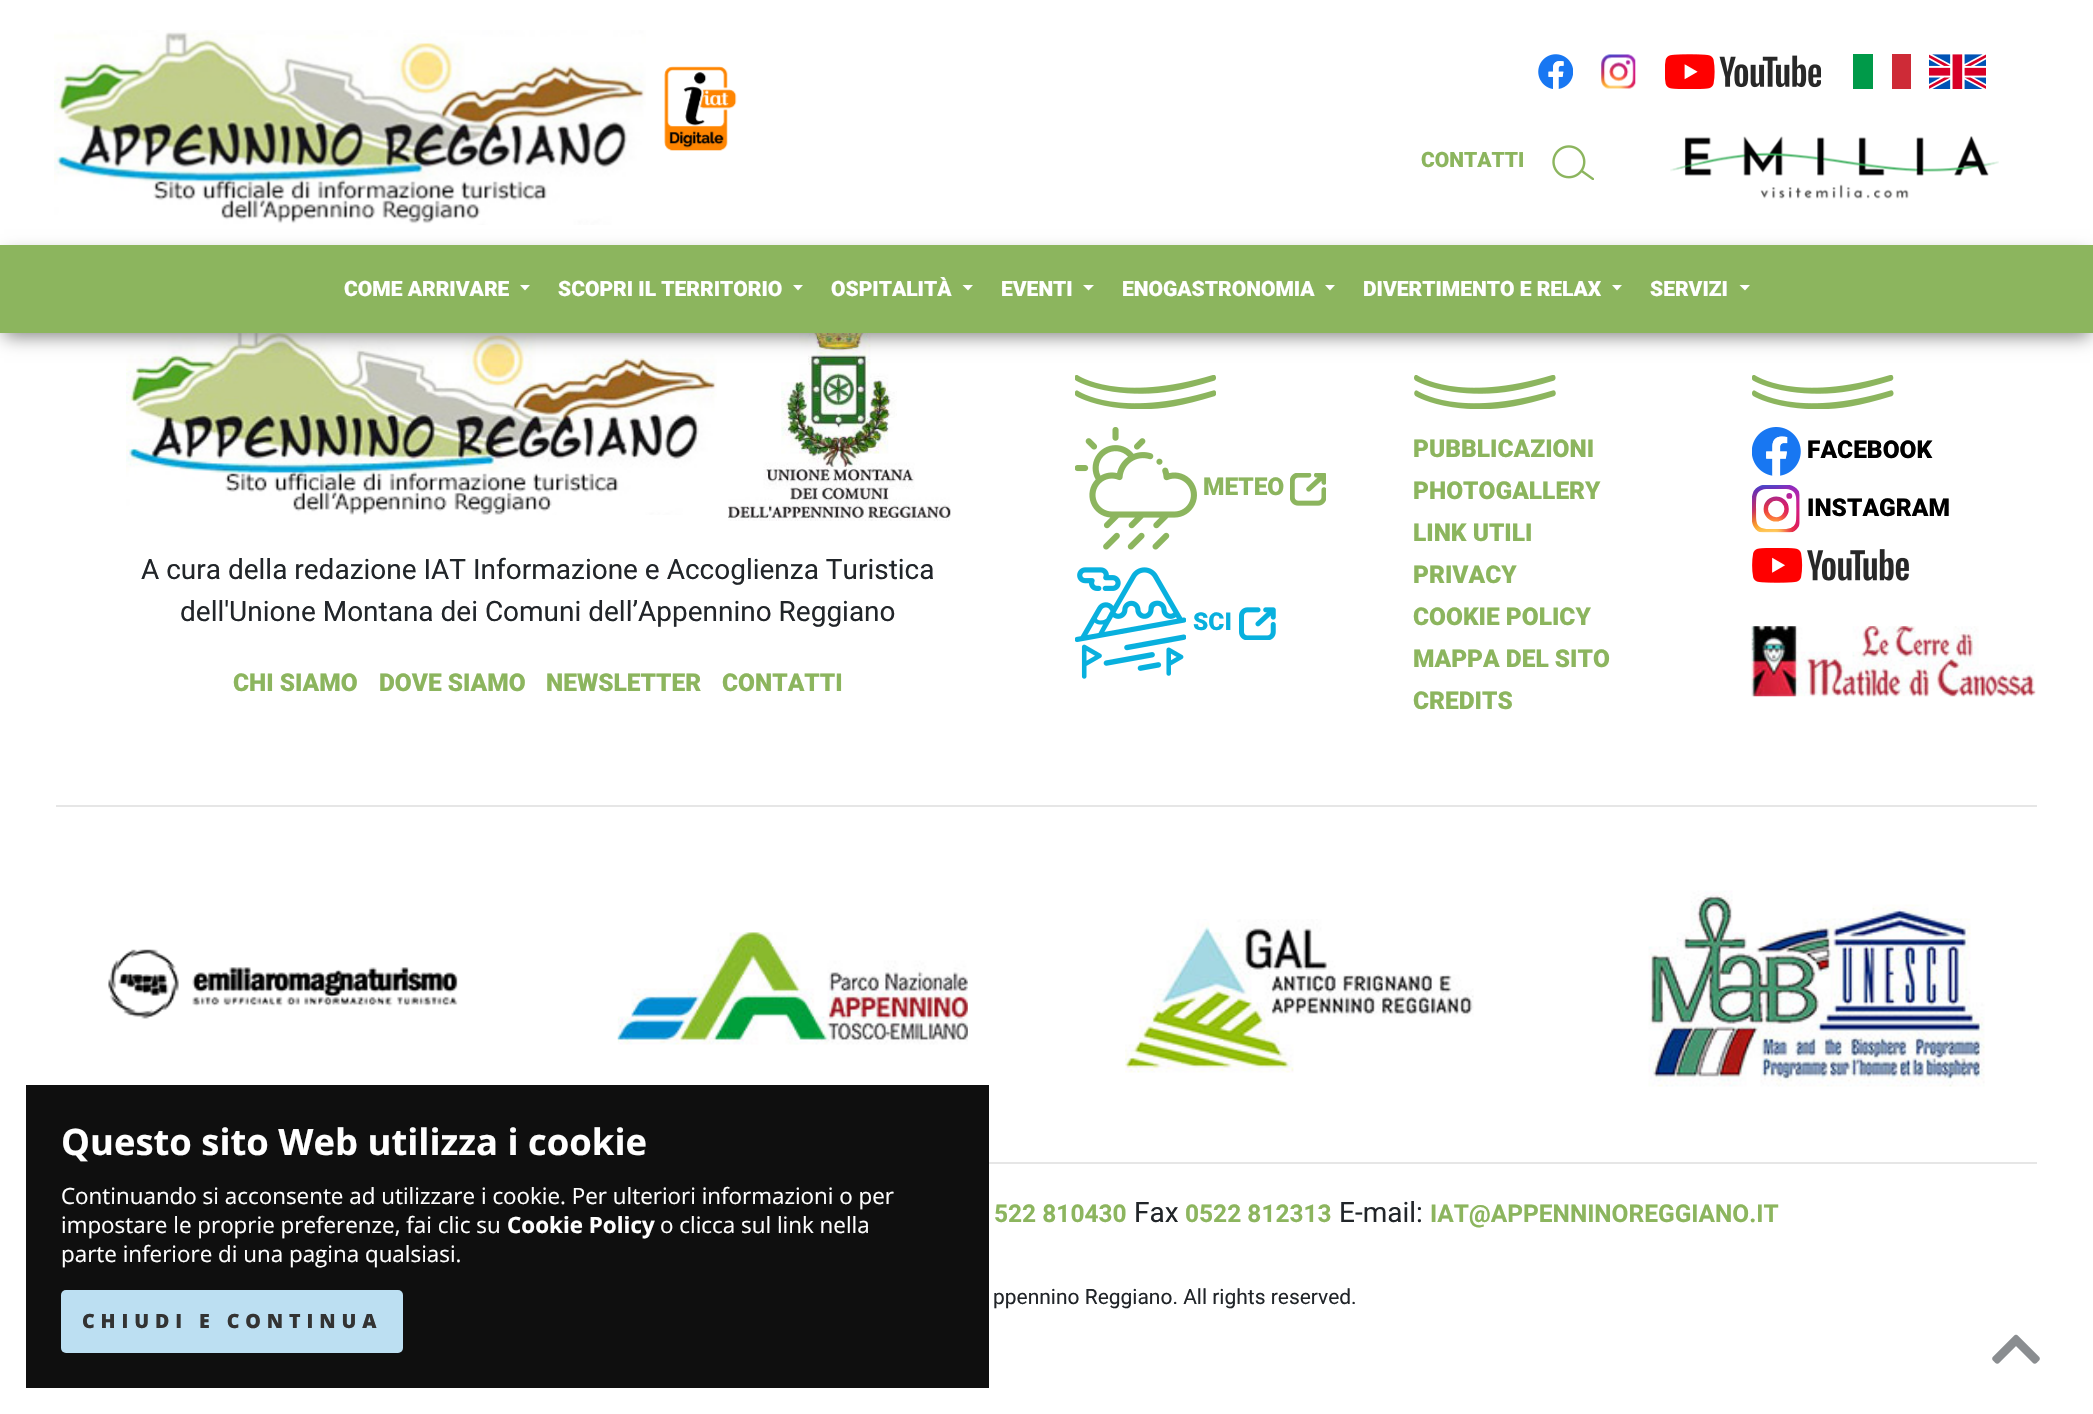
void draw(SkCanvas* canvas) {
    SkPaint paint;
    paint.setAntiAlias(true);
    auto spacedText = [&](const char* s, float x, float y, const SkFont& font, const SkPaint& ink, float letter, float word) {
        std::vector<SkGlyphID> glyphs(font.countText(s, strlen(s), SkTextEncoding::kUTF8));
        std::vector<float> xs(glyphs.size());
        font.textToGlyphs(s, strlen(s), SkTextEncoding::kUTF8, glyphs);
        font.getXPos(glyphs, xs, x);
        float extra = 0;
        for (size_t i = 0; i < glyphs.size(); i++) {
            xs[i] += extra;
            extra += letter + word * (glyphs[i] == font.unicharToGlyph(' '));
        }
        canvas->drawTextBlob(SkTextBlob::MakeFromPosHGlyphs(glyphs, xs, y, font), 0, 0, ink);
    };
    canvas->clear(0xFFFFFFFF);
    canvas->drawImageRect(SkImages::DeferredFromEncodedData(SkData::MakeFromFileName("img1.png")), SkRect::MakeXYWH(54, 30, 592, 195), SkSamplingOptions());
    canvas->drawImageRect(SkImages::DeferredFromEncodedData(SkData::MakeFromFileName("img2.png")), SkRect::MakeXYWH(664, 66, 73, 85), SkSamplingOptions());
    canvas->drawImageRect(SkImages::DeferredFromEncodedData(SkData::MakeFromFileName("img3.png")), SkRect::MakeXYWH(1538, 54, 35, 35), SkSamplingOptions());
    canvas->drawImageRect(SkImages::DeferredFromEncodedData(SkData::MakeFromFileName("img4.png")), SkRect::MakeXYWH(1601, 54, 35, 35), SkSamplingOptions());
    canvas->drawImageRect(SkImages::DeferredFromEncodedData(SkData::MakeFromFileName("img5.png")), SkRect::MakeXYWH(1665, 54, 156, 35), SkSamplingOptions());
    paint.setColor(0xFF009A49);
    canvas->drawRect(SkRect::MakeXYWH(1853, 54, 20, 35), paint);
    paint.setColor(0xFFCE2B37);
    canvas->drawRect(SkRect::MakeXYWH(1892, 54, 19, 35), paint);
    canvas->drawImageRect(SkImages::DeferredFromEncodedData(SkData::MakeFromFileName("img6.png")), SkRect::MakeXYWH(1929, 54, 57, 35), SkSamplingOptions());
    SkFont font1(fontMgr->matchFamilyStyle("Roboto", SkFontStyle(900, SkFontStyle::kNormal_Width, SkFontStyle::kUpright_Slant)), 21);
    font1.setSubpixel(true);
    paint.setColor(0xFF8CB55E);
    canvas->drawString("CONTATTI", 1421, 167, font1, paint);
    canvas->drawImageRect(SkImages::DeferredFromEncodedData(SkData::MakeFromFileName("img7.png")), SkRect::MakeXYWH(1552, 145, 42, 35), SkSamplingOptions());
    canvas->drawImageRect(SkImages::DeferredFromEncodedData(SkData::MakeFromFileName("img8.png")), SkRect::MakeXYWH(1670, 136, 329, 63), SkSamplingOptions());
    canvas->drawImageRect(SkImages::DeferredFromEncodedData(SkData::MakeFromFileName("img9.png")), SkRect::MakeXYWH(126, 333, 591, 182), SkSamplingOptions());
    canvas->drawImageRect(SkImages::DeferredFromEncodedData(SkData::MakeFromFileName("img10.png")), SkRect::MakeXYWH(728, 333, 223, 188), SkSamplingOptions());
    paint.setColor(0xFF808080);
    paint.setMaskFilter(SkMaskFilter::MakeBlur(kNormal_SkBlurStyle, 9));
    canvas->drawRect(SkRect::MakeXYWH(4, 256, 2086, 80), paint);
    paint.setMaskFilter(nullptr);
    paint.setColor(0xFF8CB55E);
    canvas->drawRect(SkRect::MakeXYWH(0, 245, 2093, 88), paint);
    paint.setColor(0xFFFFFFFF);
    canvas->drawString("COME ARRIVARE", 344, 296, font1, paint);
    canvas->drawPath(SkPathBuilder().moveTo(520, 285).lineTo(530, 285).lineTo(525, 290.5f).close().detach(), paint);
    canvas->drawString("SCOPRI IL TERRITORIO", 558, 296, font1, paint);
    canvas->drawPath(SkPathBuilder().moveTo(793, 285).lineTo(803, 285).lineTo(798, 290.5f).close().detach(), paint);
    canvas->drawString("OSPITALITÀ", 831, 296, font1, paint);
    canvas->drawPath(SkPathBuilder().moveTo(962.5f, 285).lineTo(973, 285).lineTo(968, 290.5f).close().detach(), paint);
    canvas->drawString("EVENTI", 1001, 296, font1, paint);
    canvas->drawPath(SkPathBuilder().moveTo(1083, 285).lineTo(1094, 285).lineTo(1088.5f, 290.5f).close().detach(), paint);
    canvas->drawString("ENOGASTRONOMIA", 1122, 296, font1, paint);
    canvas->drawPath(SkPathBuilder().moveTo(1325, 285).lineTo(1335, 285).lineTo(1330, 290.5f).close().detach(), paint);
    canvas->drawString("DIVERTIMENTO E RELAX", 1363, 296, font1, paint);
    canvas->drawPath(SkPathBuilder().moveTo(1612, 285).lineTo(1622, 285).lineTo(1617, 290.5f).close().detach(), paint);
    canvas->drawString("SERVIZI", 1650, 296, font1, paint);
    canvas->drawPath(SkPathBuilder().moveTo(1739.5f, 285).lineTo(1750, 285).lineTo(1745, 290.5f).close().detach(), paint);
    SkFont font2(fontMgr->matchFamilyStyle("Roboto", SkFontStyle::Normal()), 28);
    font2.setSubpixel(true);
    paint.setColor(0xFF212529);
    canvas->drawString("A cura della redazione IAT Informazione e Accoglienza Turistica", 141, 579, font2, paint);
    canvas->drawString("dell'Unione Montana dei Comuni dell’Appennino Reggiano", 180, 621, font2, paint);
    SkFont font3(fontMgr->matchFamilyStyle("Roboto", SkFontStyle(900, SkFontStyle::kNormal_Width, SkFontStyle::kUpright_Slant)), 24.5f);
    font3.setSubpixel(true);
    paint.setColor(0xFF8CB55E);
    canvas->drawString("CHI SIAMO", 233, 691, font3, paint);
    canvas->drawString("DOVE SIAMO", 379, 691, font3, paint);
    canvas->drawString("NEWSLETTER", 546, 691, font3, paint);
    canvas->drawString("CONTATTI", 722, 691, font3, paint);
    canvas->drawImageRect(SkImages::DeferredFromEncodedData(SkData::MakeFromFileName("img11.png")), SkRect::MakeXYWH(1075, 375, 141, 34), SkSamplingOptions());
    canvas->drawImageRect(SkImages::DeferredFromEncodedData(SkData::MakeFromFileName("img12.png")), SkRect::MakeXYWH(1075, 427, 122, 123), SkSamplingOptions());
    canvas->drawString("METEO", 1203, 495, font3, paint);
    canvas->drawImageRect(SkImages::DeferredFromEncodedData(SkData::MakeFromFileName("img13.png")), SkRect::MakeXYWH(1290, 473, 36, 33), SkSamplingOptions());
    canvas->drawImageRect(SkImages::DeferredFromEncodedData(SkData::MakeFromFileName("img14.png")), SkRect::MakeXYWH(1075, 567, 111, 112), SkSamplingOptions());
    paint.setColor(0xFF08B0DE);
    canvas->drawString("SCI", 1193, 630, font3, paint);
    canvas->drawImageRect(SkImages::DeferredFromEncodedData(SkData::MakeFromFileName("img15.png")), SkRect::MakeXYWH(1239, 607, 37, 33), SkSamplingOptions());
    canvas->drawImageRect(SkImages::DeferredFromEncodedData(SkData::MakeFromFileName("img16.png")), SkRect::MakeXYWH(1414, 375, 142, 34), SkSamplingOptions());
    paint.setColor(0xFF8CB55E);
    canvas->drawString("PUBBLICAZIONI", 1413, 457, font3, paint);
    canvas->drawString("PHOTOGALLERY", 1413, 499, font3, paint);
    canvas->drawString("LINK UTILI", 1413, 541, font3, paint);
    canvas->drawString("PRIVACY", 1413, 583, font3, paint);
    canvas->drawString("COOKIE POLICY", 1413, 625, font3, paint);
    canvas->drawString("MAPPA DEL SITO", 1413, 667, font3, paint);
    canvas->drawString("CREDITS", 1413, 709, font3, paint);
    canvas->drawImageRect(SkImages::DeferredFromEncodedData(SkData::MakeFromFileName("img17.png")), SkRect::MakeXYWH(1752, 375, 142, 34), SkSamplingOptions());
    canvas->drawImageRect(SkImages::DeferredFromEncodedData(SkData::MakeFromFileName("img18.png")), SkRect::MakeXYWH(1752, 427, 49, 49), SkSamplingOptions());
    paint.setColor(0xFF000000);
    canvas->drawString("FACEBOOK", 1807, 458, font3, paint);
    canvas->drawImageRect(SkImages::DeferredFromEncodedData(SkData::MakeFromFileName("img19.png")), SkRect::MakeXYWH(1752, 485, 48, 48), SkSamplingOptions());
    canvas->drawString("INSTAGRAM", 1807, 516, font3, paint);
    canvas->drawImageRect(SkImages::DeferredFromEncodedData(SkData::MakeFromFileName("img20.png")), SkRect::MakeXYWH(1752, 548, 157, 35), SkSamplingOptions());
    canvas->drawImageRect(SkImages::DeferredFromEncodedData(SkData::MakeFromFileName("img21.png")), SkRect::MakeXYWH(1751, 626, 285, 71), SkSamplingOptions());
    paint.setColor(0xFFE6E6E6);
    canvas->drawRect(SkRect::MakeXYWH(56, 805, 1981, 2), paint);
    canvas->drawImageRect(SkImages::DeferredFromEncodedData(SkData::MakeFromFileName("img22.png")), SkRect::MakeXYWH(108, 949, 350, 70), SkSamplingOptions());
    canvas->drawImageRect(SkImages::DeferredFromEncodedData(SkData::MakeFromFileName("img23.png")), SkRect::MakeXYWH(617, 932, 351, 113), SkSamplingOptions());
    canvas->drawImageRect(SkImages::DeferredFromEncodedData(SkData::MakeFromFileName("img24.png")), SkRect::MakeXYWH(1125, 919, 349, 154), SkSamplingOptions());
    canvas->drawImageRect(SkImages::DeferredFromEncodedData(SkData::MakeFromFileName("img25.png")), SkRect::MakeXYWH(1648, 890, 337, 197), SkSamplingOptions());
    canvas->drawRect(SkRect::MakeXYWH(56, 1162, 1981, 2), paint);
    SkFont font4(fontMgr->matchFamilyStyle("Roboto", SkFontStyle::Bold()), 24.5f);
    font4.setSubpixel(true);
    paint.setColor(0xFF8CB55E);
    canvas->drawString("522 810430", 994, 1222, font4, paint);
    paint.setColor(0xFF212529);
    canvas->drawString("Fax", 1134, 1222, font2, paint);
    paint.setColor(0xFF8CB55E);
    canvas->drawString("0522 812313", 1185, 1222, font4, paint);
    paint.setColor(0xFF212529);
    canvas->drawString("E-mail:", 1339, 1222, font2, paint);
    paint.setColor(0xFF8CB55E);
    canvas->drawString("IAT@APPENNINOREGGIANO.IT", 1430, 1222, font4, paint);
    SkFont font5(fontMgr->matchFamilyStyle("Roboto", SkFontStyle::Normal()), 21);
    font5.setSubpixel(true);
    paint.setColor(0xFF212529);
    canvas->drawString("ppennino Reggiano. All rights reserved.", 993, 1304, font5, paint);
    paint.setColor(0xFA0A0A0A);
    canvas->drawRect(SkRect::MakeXYWH(26, 1085, 963, 303), paint);
    SkFont font6(fontMgr->matchFamilyStyle("Open Sans", SkFontStyle::Bold()), 36.4f);
    font6.setSubpixel(true);
    paint.setColor(0xFFFFFFFF);
    canvas->drawString("Questo sito Web utilizza i cookie", 61, 1155, font6, paint);
    SkFont font7(fontMgr->matchFamilyStyle("Open Sans", SkFontStyle::Normal()), 22.4f);
    font7.setSubpixel(true);
    canvas->drawString("Continuando si acconsente ad utilizzare i cookie. Per ulteriori informazioni o per", 61, 1204, font7, paint);
    canvas->drawString("impostare le proprie preferenze, fai clic su", 61, 1233, font7, paint);
    SkFont font8(fontMgr->matchFamilyStyle("Open Sans", SkFontStyle::Bold()), 22.4f);
    font8.setSubpixel(true);
    canvas->drawString("Cookie Policy", 507, 1233, font8, paint);
    canvas->drawString("o clicca sul link nella", 660, 1233, font7, paint);
    canvas->drawString("parte inferiore di una pagina qualsiasi.", 61, 1262, font7, paint);
    paint.setColor(0xFFBCDFF2);
    canvas->drawRoundRect(SkRect::MakeXYWH(61, 1290, 342, 63), 5, 5, paint);
    SkFont font9(fontMgr->matchFamilyStyle("Open Sans", SkFontStyle(800, SkFontStyle::kNormal_Width, SkFontStyle::kUpright_Slant)), 19.6f);
    font9.setSubpixel(true);
    paint.setColor(0xFF333333);
    spacedText("CHIUDI E CONTINUA", 82, 1328, font9, paint, 5.9f, 0);
    canvas->drawImageRect(SkImages::DeferredFromEncodedData(SkData::MakeFromFileName("img26.png")), SkRect::MakeXYWH(1992, 1334, 48, 30), SkSamplingOptions());
}
